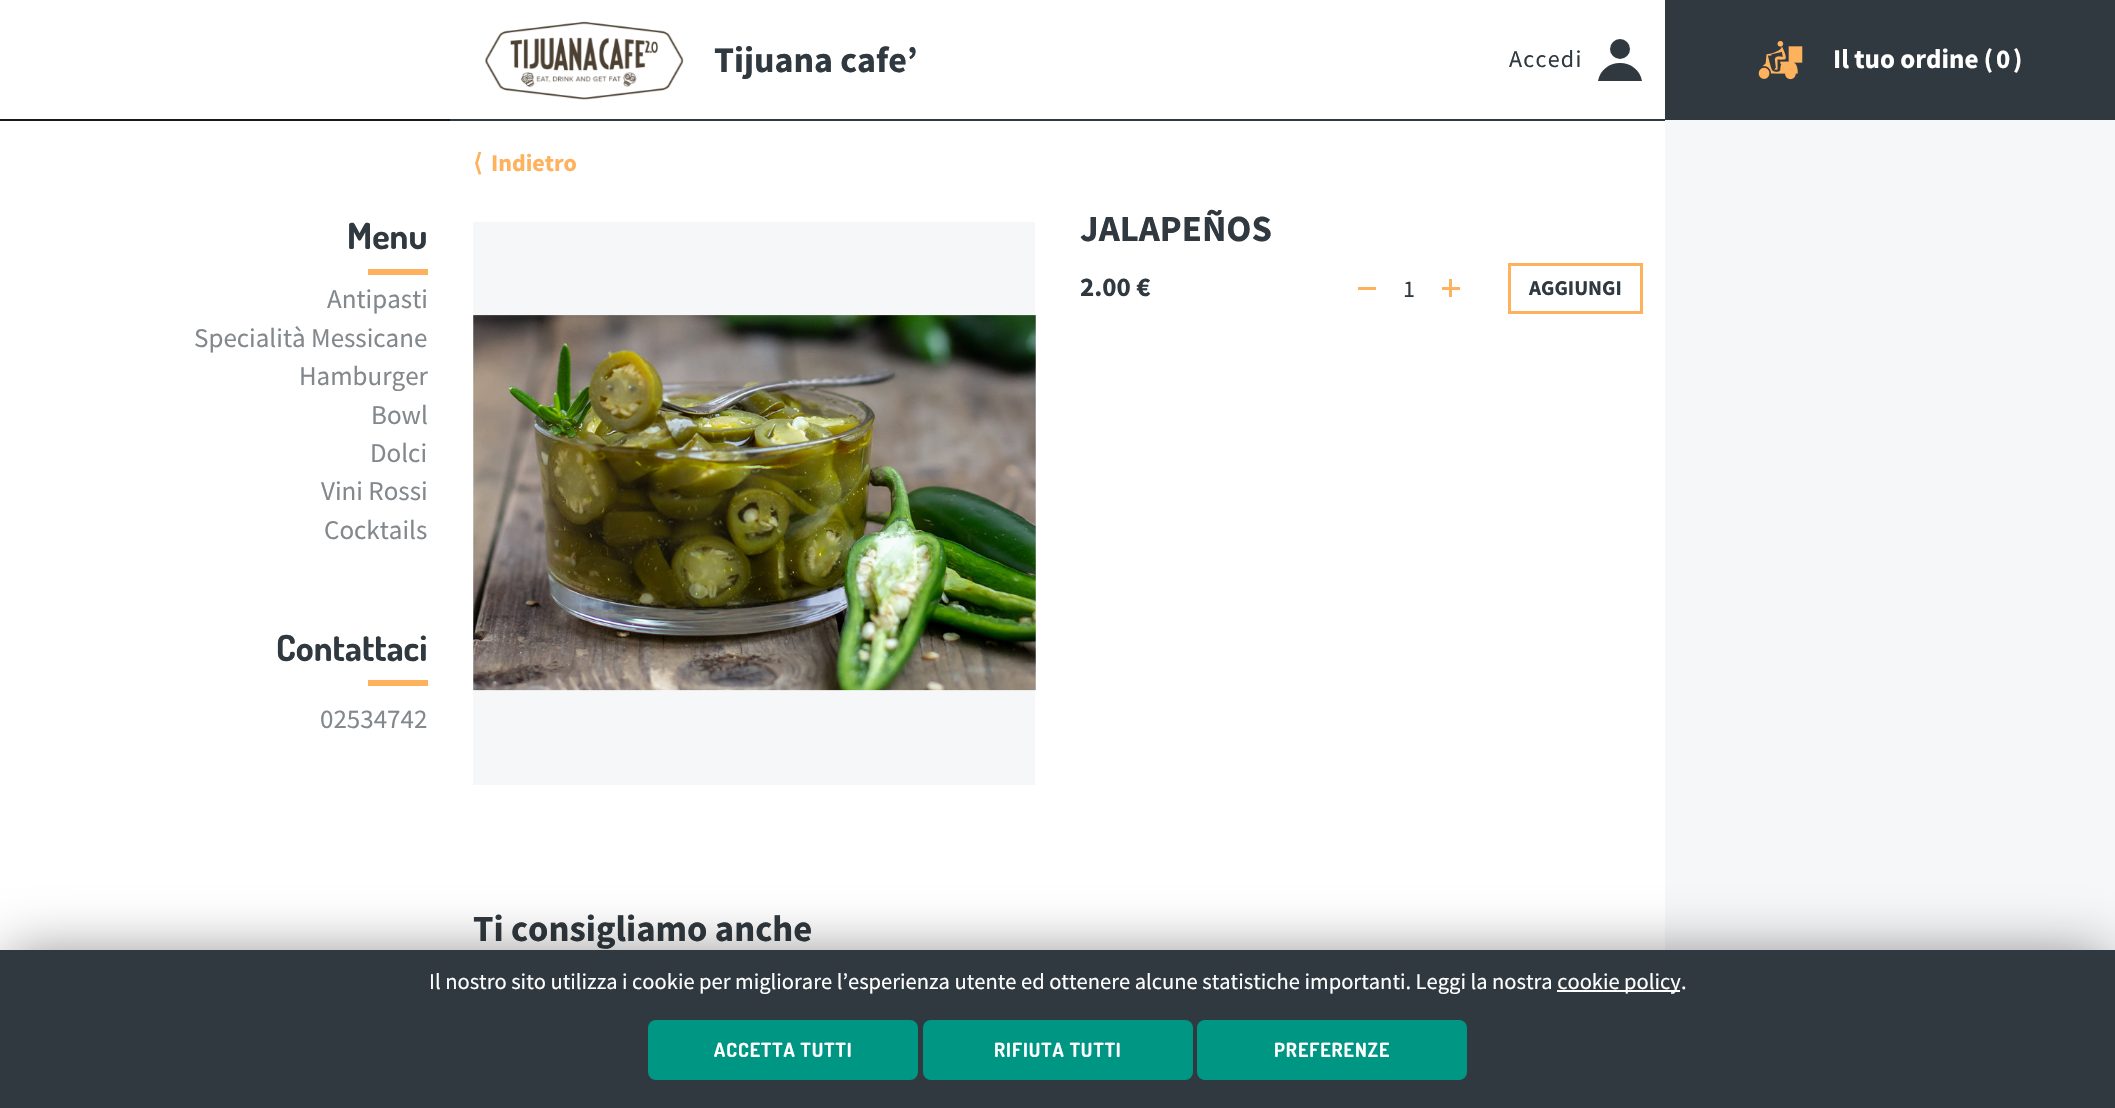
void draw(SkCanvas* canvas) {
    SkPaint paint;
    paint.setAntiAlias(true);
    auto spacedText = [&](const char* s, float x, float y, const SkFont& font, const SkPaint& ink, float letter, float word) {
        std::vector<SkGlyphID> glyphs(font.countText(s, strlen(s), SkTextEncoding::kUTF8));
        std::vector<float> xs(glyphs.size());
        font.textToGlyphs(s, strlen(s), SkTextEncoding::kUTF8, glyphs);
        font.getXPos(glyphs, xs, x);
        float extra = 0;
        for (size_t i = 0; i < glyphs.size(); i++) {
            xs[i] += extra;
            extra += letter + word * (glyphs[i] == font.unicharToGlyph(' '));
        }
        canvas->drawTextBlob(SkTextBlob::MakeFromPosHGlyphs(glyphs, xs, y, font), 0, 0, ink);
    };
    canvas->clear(0xFFFFFFFF);
    paint.setColor(0xFF30393F);
    canvas->drawRect(SkRect::MakeXYWH(450, 119, 1215, 2), paint);
    canvas->drawImageRect(SkImages::DeferredFromEncodedData(SkData::MakeFromFileName("img1.png")), SkRect::MakeXYWH(485, 21, 199, 79), SkSamplingOptions());
    SkFont font1(fontMgr->matchFamilyStyle("Source Sans Pro", SkFontStyle::Bold()), 36);
    font1.setSubpixel(true);
    canvas->drawString("Tijuana cafe’", 714, 72, font1, paint);
    SkFont font2(fontMgr->matchFamilyStyle("Source Sans Pro", SkFontStyle::Normal()), 24);
    font2.setSubpixel(true);
    spacedText("Accedi", 1509, 67, font2, paint, 1.25f, 0);
    canvas->drawCircle(1620, 49, 10, paint);
    canvas->drawPath(SkPathBuilder().moveTo(1620, 63).cubicTo(1609, 63, 1600, 70, 1598, 81).lineTo(1642, 81).cubicTo(1640, 70, 1631, 63, 1620, 63).close().detach(), paint);
    canvas->drawRect(SkRect::MakeXYWH(1665, 0, 450, 120), paint);
    canvas->drawImageRect(SkImages::DeferredFromEncodedData(SkData::MakeFromFileName("img2.png")), SkRect::MakeXYWH(1758, 41, 45, 39), SkSamplingOptions());
    SkFont font3(fontMgr->matchFamilyStyle("Source Sans Pro", SkFontStyle::Bold()), 27);
    font3.setSubpixel(true);
    paint.setColor(0xFFFFFFFF);
    canvas->drawString("Il tuo ordine (", 1833, 68, font3, paint);
    canvas->drawString("0", 1996, 68, font3, paint);
    canvas->drawString(")", 2013, 68, font3, paint);
    paint.setColor(0xFF191919);
    canvas->drawRect(SkRect::MakeXYWH(0, 119, 450, 2), paint);
    SkFont font4(fontMgr->matchFamilyStyle("Dosis", SkFontStyle::Bold()), 36);
    font4.setSubpixel(true);
    paint.setColor(0xFF30393F);
    canvas->drawString("Menu", 347, 249, font4, paint);
    paint.setColor(0xFFFFB25D);
    canvas->drawRect(SkRect::MakeXYWH(368, 269, 60, 6), paint);
    SkFont font5(fontMgr->matchFamilyStyle("Source Sans Pro", SkFontStyle::Normal()), 27);
    font5.setSubpixel(true);
    paint.setColor(0xFF83888C);
    canvas->drawString("Antipasti", 327, 308, font5, paint);
    canvas->drawString("Specialità Messicane", 194, 347, font5, paint);
    canvas->drawString("Hamburger", 299, 385, font5, paint);
    canvas->drawString("Bowl", 371, 424, font5, paint);
    canvas->drawString("Dolci", 370, 462, font5, paint);
    canvas->drawString("Vini Rossi", 321, 500, font5, paint);
    canvas->drawString("Cocktails", 324, 539, font5, paint);
    paint.setColor(0xFF30393F);
    canvas->drawString("Contattaci", 276, 661, font4, paint);
    paint.setColor(0xFFFFB25D);
    canvas->drawRect(SkRect::MakeXYWH(368, 680, 60, 6), paint);
    paint.setColor(0xFF83888C);
    canvas->drawString("02534742", 320, 728, font5, paint);
    paint.setColor(0xFFF6F7F9);
    canvas->drawRect(SkRect::MakeXYWH(1665, 120, 450, 830), paint);
    SkFont font6(fontMgr->matchFamilyStyle("DejaVu Sans", SkFontStyle::Bold()), 24);
    font6.setSubpixel(true);
    paint.setColor(0xFFFFB25D);
    canvas->drawString("⟨", 473, 171, font6, paint);
    SkFont font7(fontMgr->matchFamilyStyle("Source Sans Pro", SkFontStyle::Bold()), 24);
    font7.setSubpixel(true);
    canvas->drawString("Indietro", 491, 171, font7, paint);
    paint.setColor(0xFFF6F7F9);
    canvas->drawRect(SkRect::MakeXYWH(473, 222, 562, 563), paint);
    canvas->drawImageRect(SkImages::DeferredFromEncodedData(SkData::MakeFromFileName("img3.png")), SkRect::MakeXYWH(473, 315, 563, 376), SkSamplingOptions());
    SkFont font8(fontMgr->matchFamilyStyle("Source Sans Pro", SkFontStyle::Bold()), 36.75f);
    font8.setSubpixel(true);
    paint.setColor(0xFF30393F);
    canvas->drawString("JALAPEÑOS", 1080, 241, font8, paint);
    canvas->drawString("2.00 €", 1080, 296, font3, paint);
    paint.setColor(0xFFFFB25D);
    canvas->drawRect(SkRect::MakeXYWH(1358, 287, 18, 3), paint);
    paint.setColor(0xFF30393F);
    canvas->drawString("1", 1403, 297, font2, paint);
    paint.setColor(0xFFFFB25D);
    canvas->drawRect(SkRect::MakeXYWH(1442, 287, 18, 3), paint);
    canvas->drawRect(SkRect::MakeXYWH(1449, 279, 3, 18), paint);
    paint.setStyle(SkPaint::kStroke_Style);
    paint.setStrokeWidth(3);
    canvas->drawRect(SkRect::MakeXYWH(1509.5f, 264.5f, 132, 48), paint);
    SkFont font9(fontMgr->matchFamilyStyle("Source Sans Pro", SkFontStyle::Bold()), 21);
    font9.setSubpixel(true);
    paint.setStyle(SkPaint::kFill_Style);
    paint.setColor(0xFF30393F);
    canvas->drawString("AGGIUNGI", 1529, 295, font9, paint);
    canvas->drawString("Ti consigliamo anche", 473, 941, font8, paint);
    paint.setColor(0x80000000);
    paint.setMaskFilter(SkMaskFilter::MakeBlur(kNormal_SkBlurStyle, 30));
    canvas->drawRect(SkRect::MakeXYWH(8, 957, 2100, 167), paint);
    paint.setMaskFilter(nullptr);
    paint.setColor(0xFF30393F);
    canvas->drawRect(SkRect::MakeXYWH(0, 950, 2115, 158), paint);
    SkFont font10(fontMgr->matchFamilyStyle("Source Sans Pro", SkFontStyle::Normal()), 22.5f);
    font10.setSubpixel(true);
    paint.setColor(0xFFFFFFFF);
    canvas->drawString("Il nostro sito utilizza i cookie per migliorare l’esperienza utente ed ottenere alcune statistiche importanti. Leggi la nostra cookie", 429, 989, font10, paint);
    canvas->drawRect(SkRect::MakeXYWH(1557, 990, 123, 2), paint);
    canvas->drawString("policy", 1624, 989, font10, paint);
    canvas->drawString(".", 1681, 989, font10, paint);
    paint.setColor(0xFF009684);
    canvas->drawRoundRect(SkRect::MakeXYWH(648, 1020, 270, 60), 8, 8, paint);
    SkFont font11(fontMgr->matchFamilyStyle("Dosis", SkFontStyle::Bold()), 19.5f);
    font11.setSubpixel(true);
    paint.setColor(0xFFFFFFFF);
    spacedText("ACCETTA TUTTI", 714, 1057, font11, paint, 1, 0);
    paint.setColor(0xFF009684);
    canvas->drawRoundRect(SkRect::MakeXYWH(923, 1020, 270, 60), 8, 8, paint);
    paint.setColor(0xFFFFFFFF);
    spacedText("RIFIUTA TUTTI", 994, 1057, font11, paint, 1, 0);
    paint.setColor(0xFF009684);
    canvas->drawRoundRect(SkRect::MakeXYWH(1197, 1020, 270, 60), 8, 8, paint);
    paint.setColor(0xFFFFFFFF);
    spacedText("PREFERENZE", 1274, 1057, font11, paint, 1, 0);
}
